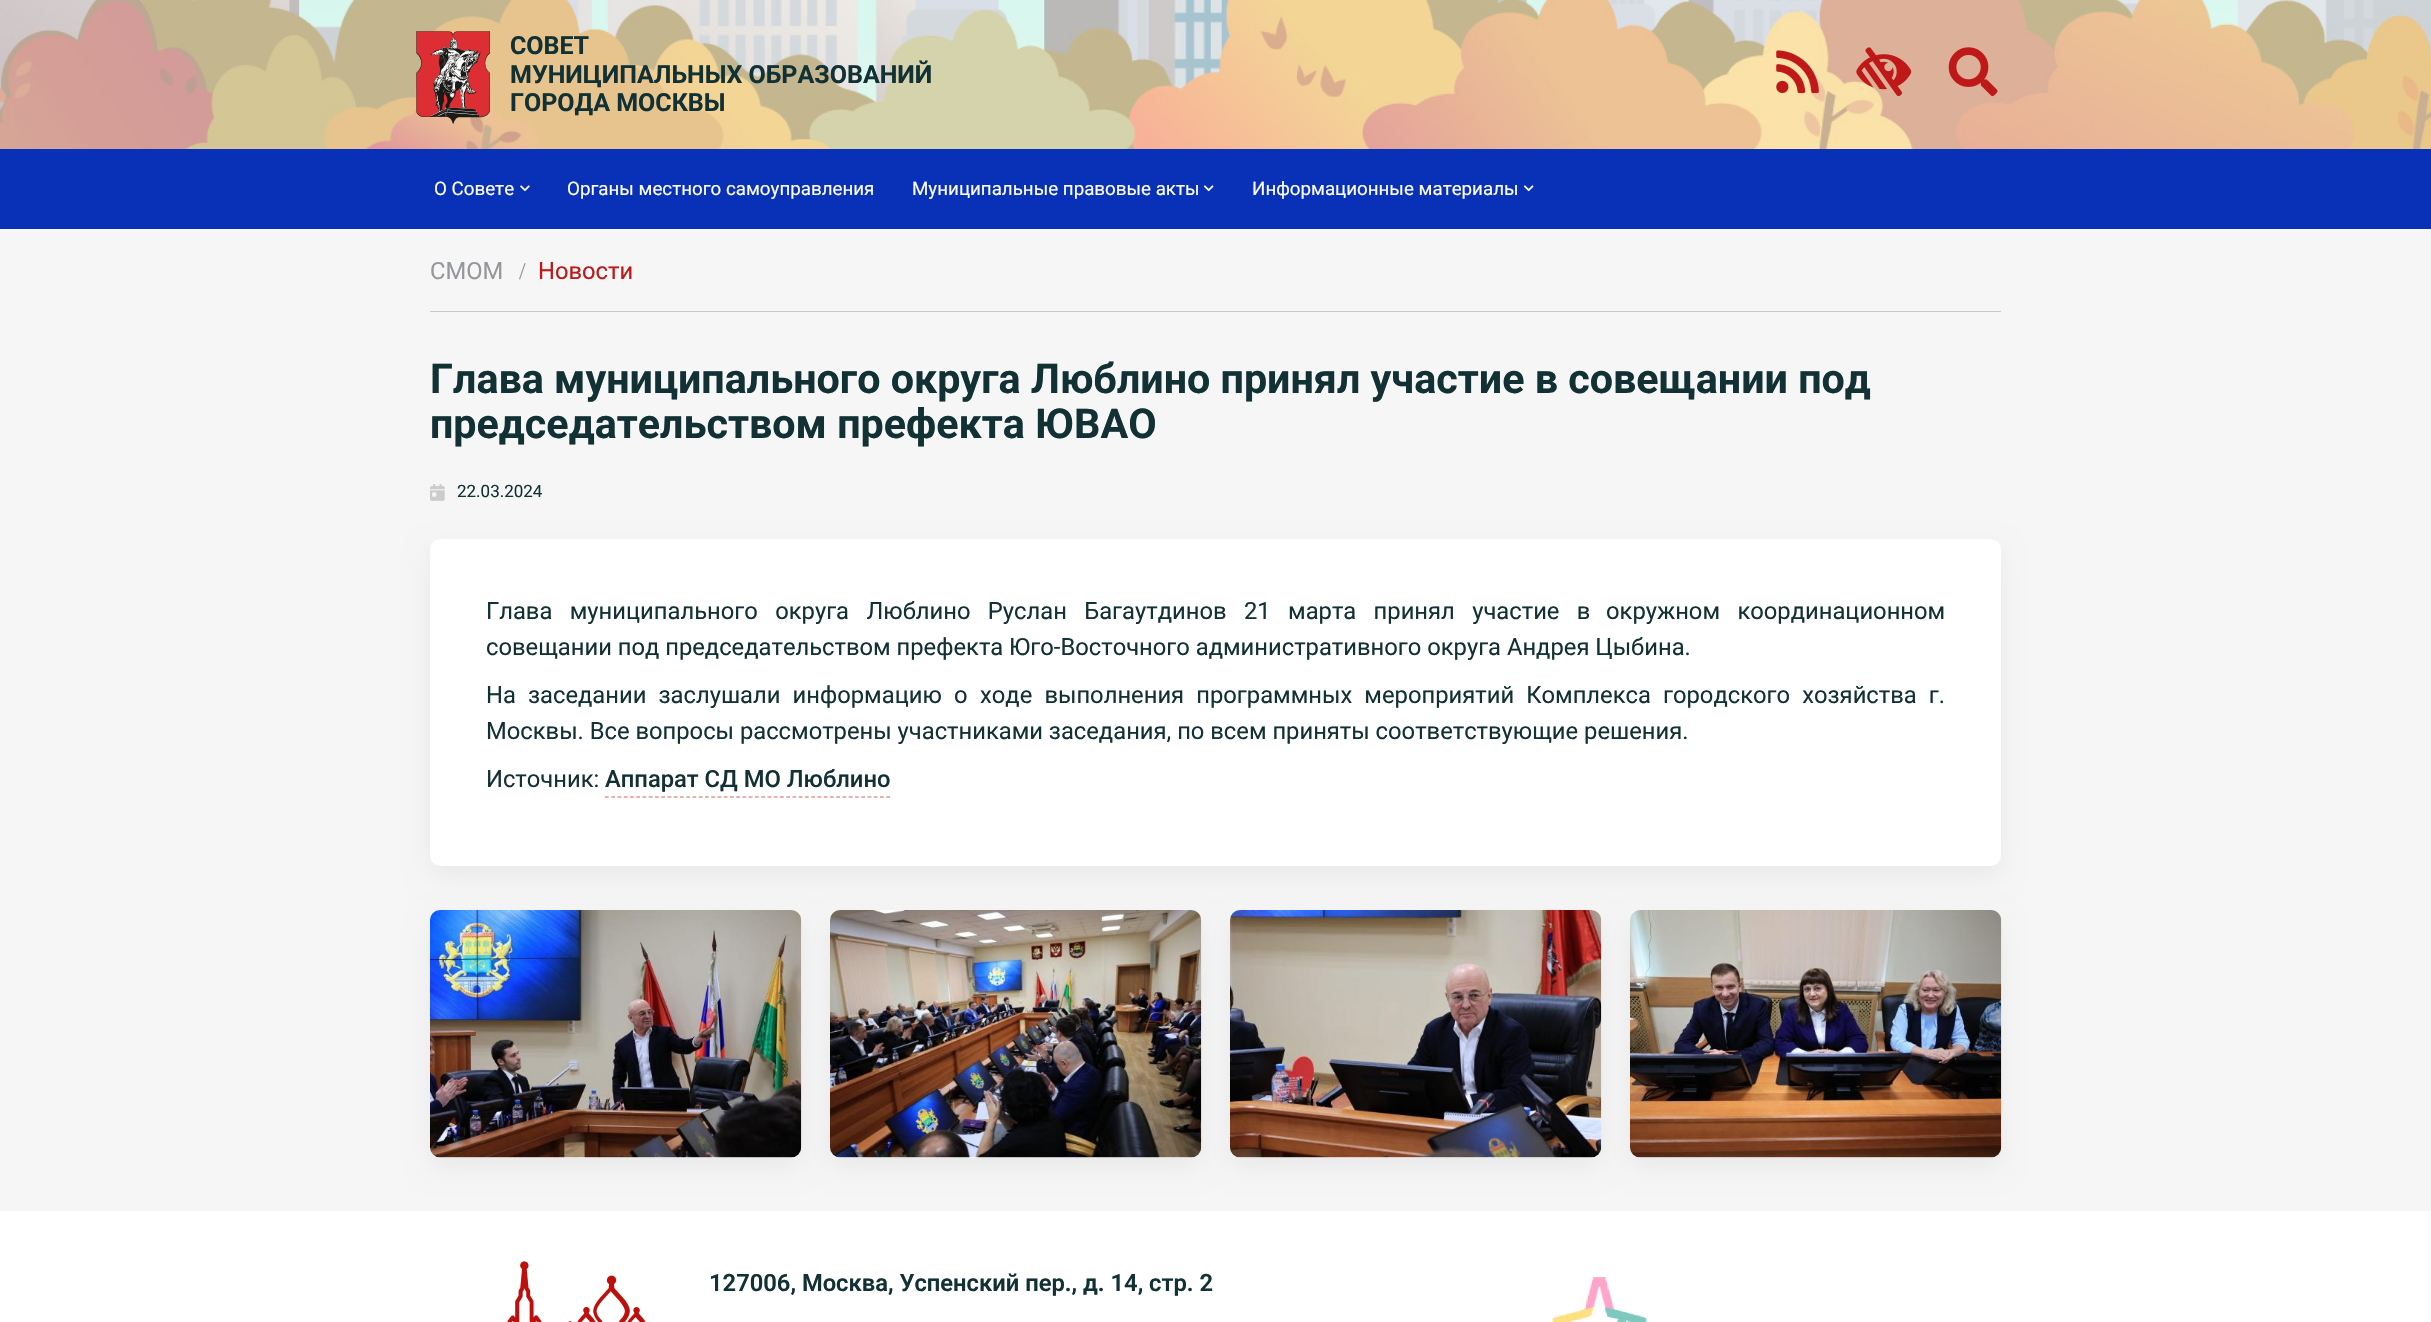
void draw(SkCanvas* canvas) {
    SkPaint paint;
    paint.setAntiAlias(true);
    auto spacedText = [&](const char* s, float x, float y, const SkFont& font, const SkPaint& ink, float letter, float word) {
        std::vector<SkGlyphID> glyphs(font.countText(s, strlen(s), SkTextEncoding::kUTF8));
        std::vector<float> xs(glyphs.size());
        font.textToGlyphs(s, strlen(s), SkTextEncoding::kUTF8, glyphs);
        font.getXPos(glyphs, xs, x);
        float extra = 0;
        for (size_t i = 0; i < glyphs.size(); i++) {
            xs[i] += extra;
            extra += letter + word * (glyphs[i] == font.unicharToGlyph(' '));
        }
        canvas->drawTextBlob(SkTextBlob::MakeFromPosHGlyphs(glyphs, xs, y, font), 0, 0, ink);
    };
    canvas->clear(0xFFF6F6F6);
    canvas->drawImageRect(SkImages::DeferredFromEncodedData(SkData::MakeFromFileName("img1.png")), SkRect::MakeXYWH(0, 0, 2431, 149), SkSamplingOptions());
    canvas->drawImageRect(SkImages::DeferredFromEncodedData(SkData::MakeFromFileName("img2.png")), SkRect::MakeXYWH(416, 31, 74, 93), SkSamplingOptions());
    SkFont font1(fontMgr->matchFamilyStyle("Roboto", SkFontStyle::Bold()), 25);
    font1.setSubpixel(true);
    paint.setColor(0xFF123135);
    canvas->drawString("СОВЕТ", 510, 54, font1, paint);
    canvas->drawString("МУНИЦИПАЛЬНЫХ ОБРАЗОВАНИЙ", 510, 83, font1, paint);
    canvas->drawString("ГОРОДА МОСКВЫ", 510, 111, font1, paint);
    canvas->drawImageRect(SkImages::DeferredFromEncodedData(SkData::MakeFromFileName("img3.png")), SkRect::MakeXYWH(1776, 50, 43, 44), SkSamplingOptions());
    canvas->drawImageRect(SkImages::DeferredFromEncodedData(SkData::MakeFromFileName("img4.png")), SkRect::MakeXYWH(1856, 47, 56, 50), SkSamplingOptions());
    canvas->drawImageRect(SkImages::DeferredFromEncodedData(SkData::MakeFromFileName("img5.png")), SkRect::MakeXYWH(1948, 47, 50, 50), SkSamplingOptions());
    paint.setColor(0xFF0931B7);
    canvas->drawRect(SkRect::MakeXYWH(0, 149, 2431, 80), paint);
    SkFont font2(fontMgr->matchFamilyStyle("Roboto", SkFontStyle::Normal()), 18.75f);
    font2.setSubpixel(true);
    paint.setColor(0xFFFFFFFF);
    canvas->drawString("О Совете", 434, 195, font2, paint);
    canvas->drawImageRect(SkImages::DeferredFromEncodedData(SkData::MakeFromFileName("img6.png")), SkRect::MakeXYWH(520, 185, 10, 7), SkSamplingOptions());
    canvas->drawString("Органы местного самоуправления", 567, 195, font2, paint);
    canvas->drawString("Муниципальные правовые акты", 912, 195, font2, paint);
    canvas->drawImageRect(SkImages::DeferredFromEncodedData(SkData::MakeFromFileName("img7.png")), SkRect::MakeXYWH(1203, 185, 11, 7), SkSamplingOptions());
    canvas->drawString("Информационные материалы", 1252, 195, font2, paint);
    canvas->drawImageRect(SkImages::DeferredFromEncodedData(SkData::MakeFromFileName("img7.png")), SkRect::MakeXYWH(1523, 185, 11, 7), SkSamplingOptions());
    paint.setColor(0xFFC9C9C9);
    canvas->drawRect(SkRect::MakeXYWH(430, 311, 1571, 1), paint);
    SkFont font3(fontMgr->matchFamilyStyle("Roboto", SkFontStyle::Normal()), 23.75f);
    font3.setSubpixel(true);
    paint.setColor(0xFF95989A);
    canvas->drawString("СМОМ", 430, 279, font3, paint);
    SkFont font4(fontMgr->matchFamilyStyle("Liberation Serif", SkFontStyle::Normal()), 23.75f);
    font4.setSubpixel(true);
    canvas->drawString("/", 519, 279, font4, paint);
    paint.setColor(0xFFBE1819);
    canvas->drawString("Новости", 538, 279, font3, paint);
    SkFont font5(fontMgr->matchFamilyStyle("Roboto", SkFontStyle::Bold()), 41.25f);
    font5.setSubpixel(true);
    paint.setColor(0xFF123135);
    canvas->drawString("Глава муниципального округа Люблино принял участие в совещании под", 430, 393, font5, paint);
    canvas->drawString("председательством префекта ЮВАО", 430, 438, font5, paint);
    canvas->drawImageRect(SkImages::DeferredFromEncodedData(SkData::MakeFromFileName("img8.png")), SkRect::MakeXYWH(430, 484, 15, 17), SkSamplingOptions());
    SkFont font6(fontMgr->matchFamilyStyle("Roboto", SkFontStyle::Normal()), 17);
    font6.setSubpixel(true);
    canvas->drawString("22.03.2024", 457, 497, font6, paint);
    paint.setColor(0x0D000000);
    paint.setMaskFilter(SkMaskFilter::MakeBlur(kNormal_SkBlurStyle, 12.5f));
    canvas->drawRoundRect(SkRect::MakeXYWH(430, 549, 1571, 327), 10, 10, paint);
    paint.setMaskFilter(nullptr);
    paint.setColor(0xFFFFFFFF);
    canvas->drawRoundRect(SkRect::MakeXYWH(430, 539, 1571, 327), 10, 10, paint);
    paint.setColor(0xFF123135);
    spacedText("Глава муниципального округа Люблино Руслан Багаутдинов 21 марта принял участие в", 486, 619, font3, paint, 0, 11.5f);
    spacedText("окружном координационном", 1606, 619, font3, paint, 0, 11.5f);
    canvas->drawString("совещании под председательством префекта Юго-Восточного административного округа Андрея Цыбина.", 486, 655, font3, paint);
    spacedText("На заседании заслушали информацию о", 486, 703, font3, paint, 0, 6.25f);
    spacedText("ходе выполнения программных мероприятий Комплекса городского хозяйства г.", 980, 703, font3, paint, 0, 6.25f);
    canvas->drawString("Москвы. Все вопросы рассмотрены участниками заседания, по всем приняты соответствующие решения.", 486, 739, font3, paint);
    canvas->drawString("Источник:", 486, 787, font3, paint);
    SkFont font7(fontMgr->matchFamilyStyle("Roboto", SkFontStyle(500, SkFontStyle::kNormal_Width, SkFontStyle::kUpright_Slant)), 23.75f);
    font7.setSubpixel(true);
    canvas->drawString("Аппарат СД МО Люблино", 605, 787, font7, paint);
    paint.setStyle(SkPaint::kStroke_Style);
    paint.setStrokeWidth(1.2f);
    paint.setColor(0xFFD36262);
    paint.setPathEffect(SkDashPathEffect::Make({{3.75f, 2.5f}}, 0));
    canvas->drawPath(SkPathBuilder().moveTo(605, 797).lineTo(890, 797).detach(), paint);
    paint.setPathEffect(nullptr);
    paint.setStyle(SkPaint::kFill_Style);
    paint.setColor(0x0D000000);
    paint.setMaskFilter(SkMaskFilter::MakeBlur(kNormal_SkBlurStyle, 12.5f));
    canvas->drawRoundRect(SkRect::MakeXYWH(430, 920, 371, 248), 10, 10, paint);
    paint.setMaskFilter(nullptr);
    paint.setColor(0xFFFFFFFF);
    canvas->drawRoundRect(SkRect::MakeXYWH(430, 910, 371, 248), 10, 10, paint);
    canvas->drawImageRect(SkImages::DeferredFromEncodedData(SkData::MakeFromFileName("img9.png")), SkRect::MakeXYWH(430, 910, 372, 248), SkSamplingOptions());
    paint.setColor(0x0D000000);
    paint.setMaskFilter(SkMaskFilter::MakeBlur(kNormal_SkBlurStyle, 12.5f));
    canvas->drawRoundRect(SkRect::MakeXYWH(830, 920, 371, 248), 10, 10, paint);
    paint.setMaskFilter(nullptr);
    paint.setColor(0xFFFFFFFF);
    canvas->drawRoundRect(SkRect::MakeXYWH(830, 910, 371, 248), 10, 10, paint);
    canvas->drawImageRect(SkImages::DeferredFromEncodedData(SkData::MakeFromFileName("img10.png")), SkRect::MakeXYWH(830, 910, 372, 248), SkSamplingOptions());
    paint.setColor(0x0D000000);
    paint.setMaskFilter(SkMaskFilter::MakeBlur(kNormal_SkBlurStyle, 12.5f));
    canvas->drawRoundRect(SkRect::MakeXYWH(1230, 920, 371, 248), 10, 10, paint);
    paint.setMaskFilter(nullptr);
    paint.setColor(0xFFFFFFFF);
    canvas->drawRoundRect(SkRect::MakeXYWH(1230, 910, 371, 248), 10, 10, paint);
    canvas->drawImageRect(SkImages::DeferredFromEncodedData(SkData::MakeFromFileName("img11.png")), SkRect::MakeXYWH(1230, 910, 372, 248), SkSamplingOptions());
    paint.setColor(0x0D000000);
    paint.setMaskFilter(SkMaskFilter::MakeBlur(kNormal_SkBlurStyle, 12.5f));
    canvas->drawRoundRect(SkRect::MakeXYWH(1630, 920, 371, 248), 10, 10, paint);
    paint.setMaskFilter(nullptr);
    paint.setColor(0xFFFFFFFF);
    canvas->drawRoundRect(SkRect::MakeXYWH(1630, 910, 371, 248), 10, 10, paint);
    canvas->drawImageRect(SkImages::DeferredFromEncodedData(SkData::MakeFromFileName("img12.png")), SkRect::MakeXYWH(1630, 910, 372, 248), SkSamplingOptions());
    canvas->drawRect(SkRect::MakeXYWH(0, 1211, 2431, 111), paint);
    canvas->drawImageRect(SkImages::DeferredFromEncodedData(SkData::MakeFromFileName("img13.png")), SkRect::MakeXYWH(507, 1261, 139, 61), SkSamplingOptions());
    SkFont font8(fontMgr->matchFamilyStyle("Roboto", SkFontStyle(600, SkFontStyle::kNormal_Width, SkFontStyle::kUpright_Slant)), 23.75f);
    font8.setSubpixel(true);
    paint.setColor(0xFF123135);
    canvas->drawString("127006, Москва, Успенский пер., д. 14, стр. 2", 709, 1291, font8, paint);
    canvas->drawImageRect(SkImages::DeferredFromEncodedData(SkData::MakeFromFileName("img14.png")), SkRect::MakeXYWH(1548, 1276, 100, 46), SkSamplingOptions());
}
